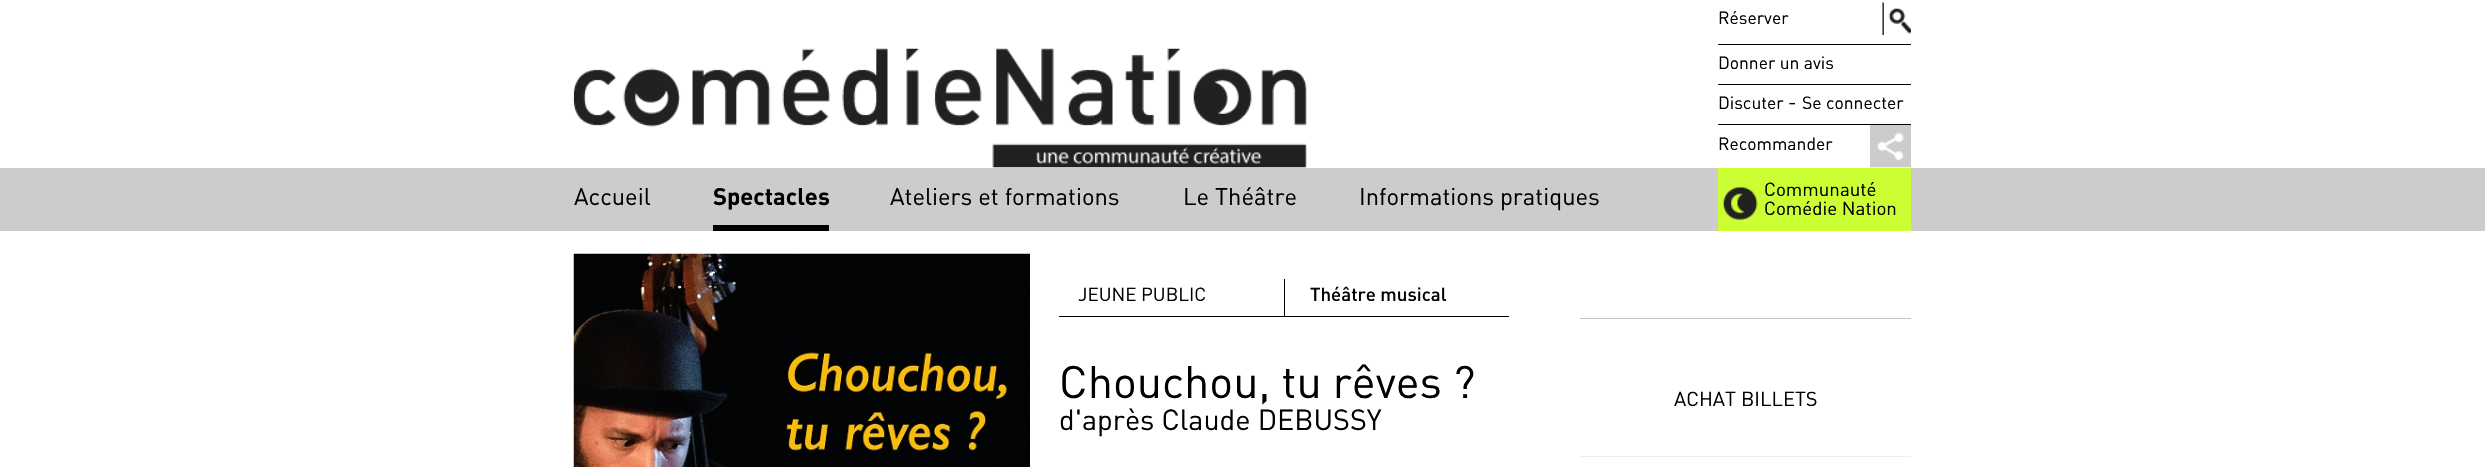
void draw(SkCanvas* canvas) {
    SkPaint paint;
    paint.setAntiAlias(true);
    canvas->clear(0xFFFFFFFF);
    canvas->drawImageRect(SkImages::DeferredFromEncodedData(SkData::MakeFromFileName("img1.png")), SkRect::MakeXYWH(573, 48, 734, 120), SkSamplingOptions());
    paint.setColor(0xFF000000);
    canvas->drawRect(SkRect::MakeXYWH(1718, 44, 193, 1), paint);
    SkFont font1(fontMgr->matchFamilyStyle("DIN", SkFontStyle::Normal()), 17.5f);
    font1.setSubpixel(true);
    canvas->drawString("Réserver", 1718, 24, font1, paint);
    canvas->drawImageRect(SkImages::DeferredFromEncodedData(SkData::MakeFromFileName("img2.png")), SkRect::MakeXYWH(1882, 2, 29, 33), SkSamplingOptions());
    canvas->drawRect(SkRect::MakeXYWH(1718, 84, 193, 1), paint);
    canvas->drawString("Donner un avis", 1718, 69, font1, paint);
    canvas->drawRect(SkRect::MakeXYWH(1718, 124, 193, 1), paint);
    canvas->drawString("Discuter", 1718, 109, font1, paint);
    SkFont font2(fontMgr->matchFamilyStyle("DIN", SkFontStyle::Normal()), 20);
    font2.setSubpixel(true);
    canvas->drawString("-", 1788, 109, font2, paint);
    canvas->drawString("Se connecter", 1802, 109, font1, paint);
    canvas->drawImageRect(SkImages::DeferredFromEncodedData(SkData::MakeFromFileName("img3.png")), SkRect::MakeXYWH(1870, 125, 41, 43), SkSamplingOptions());
    canvas->drawString("Recommander", 1718, 150, font1, paint);
    paint.setColor(0xFFCCCCCC);
    canvas->drawRect(SkRect::MakeXYWH(0, 168, 2485, 63), paint);
    SkFont font3(fontMgr->matchFamilyStyle("DIN", SkFontStyle::Normal()), 23.75f);
    font3.setSubpixel(true);
    paint.setColor(0xFF000000);
    canvas->drawString("Accueil", 574, 205, font3, paint);
    canvas->drawRect(SkRect::MakeXYWH(713, 225, 116, 6), paint);
    SkFont font4(fontMgr->matchFamilyStyle("DIN", SkFontStyle::Bold()), 23.75f);
    font4.setSubpixel(true);
    canvas->drawString("Spectacles", 713, 205, font4, paint);
    canvas->drawString("Ateliers et formations", 890, 205, font3, paint);
    canvas->drawString("Le Théâtre", 1183, 205, font3, paint);
    canvas->drawString("Informations pratiques", 1359, 205, font3, paint);
    paint.setColor(0xFFCCFF33);
    canvas->drawRect(SkRect::MakeXYWH(1718, 168, 193, 63), paint);
    canvas->drawImageRect(SkImages::DeferredFromEncodedData(SkData::MakeFromFileName("img4.png")), SkRect::MakeXYWH(1723, 187, 35, 33), SkSamplingOptions());
    SkFont font5(fontMgr->matchFamilyStyle("DIN", SkFontStyle::Normal()), 18.75f);
    font5.setSubpixel(true);
    paint.setColor(0xFF000000);
    canvas->drawString("Communauté", 1764, 196, font5, paint);
    canvas->drawString("Comédie Nation", 1764, 215, font5, paint);
    canvas->drawImageRect(SkImages::DeferredFromEncodedData(SkData::MakeFromFileName("img5.png")), SkRect::MakeXYWH(573, 253, 457, 214), SkSamplingOptions());
    canvas->drawRect(SkRect::MakeXYWH(1059, 316, 450, 1), paint);
    canvas->drawString("JEUNE PUBLIC", 1078, 301, font5, paint);
    canvas->drawRect(SkRect::MakeXYWH(1284, 279, 1, 37), paint);
    SkFont font6(fontMgr->matchFamilyStyle("DIN", SkFontStyle(500, SkFontStyle::kNormal_Width, SkFontStyle::kUpright_Slant)), 18.75f);
    font6.setSubpixel(true);
    canvas->drawString("Théâtre musical", 1310, 301, font6, paint);
    SkFont font7(fontMgr->matchFamilyStyle("DIN", SkFontStyle::Normal()), 45);
    font7.setSubpixel(true);
    canvas->drawString("Chouchou, tu rêves ?", 1059, 398, font7, paint);
    SkFont font8(fontMgr->matchFamilyStyle("DIN", SkFontStyle::Normal()), 28.75f);
    font8.setSubpixel(true);
    canvas->drawString("d'après Claude DEBUSSY", 1059, 430, font8, paint);
    paint.setColor(0xFFC6C6BE);
    canvas->drawRect(SkRect::MakeXYWH(1580, 318, 331, 1), paint);
    paint.setColor(0xFF000000);
    canvas->drawString("ACHAT BILLETS", 1674, 406, font2, paint);
    paint.setColor(0xFFEEEEEE);
    canvas->drawRect(SkRect::MakeXYWH(1580, 456, 331, 1), paint);
}
